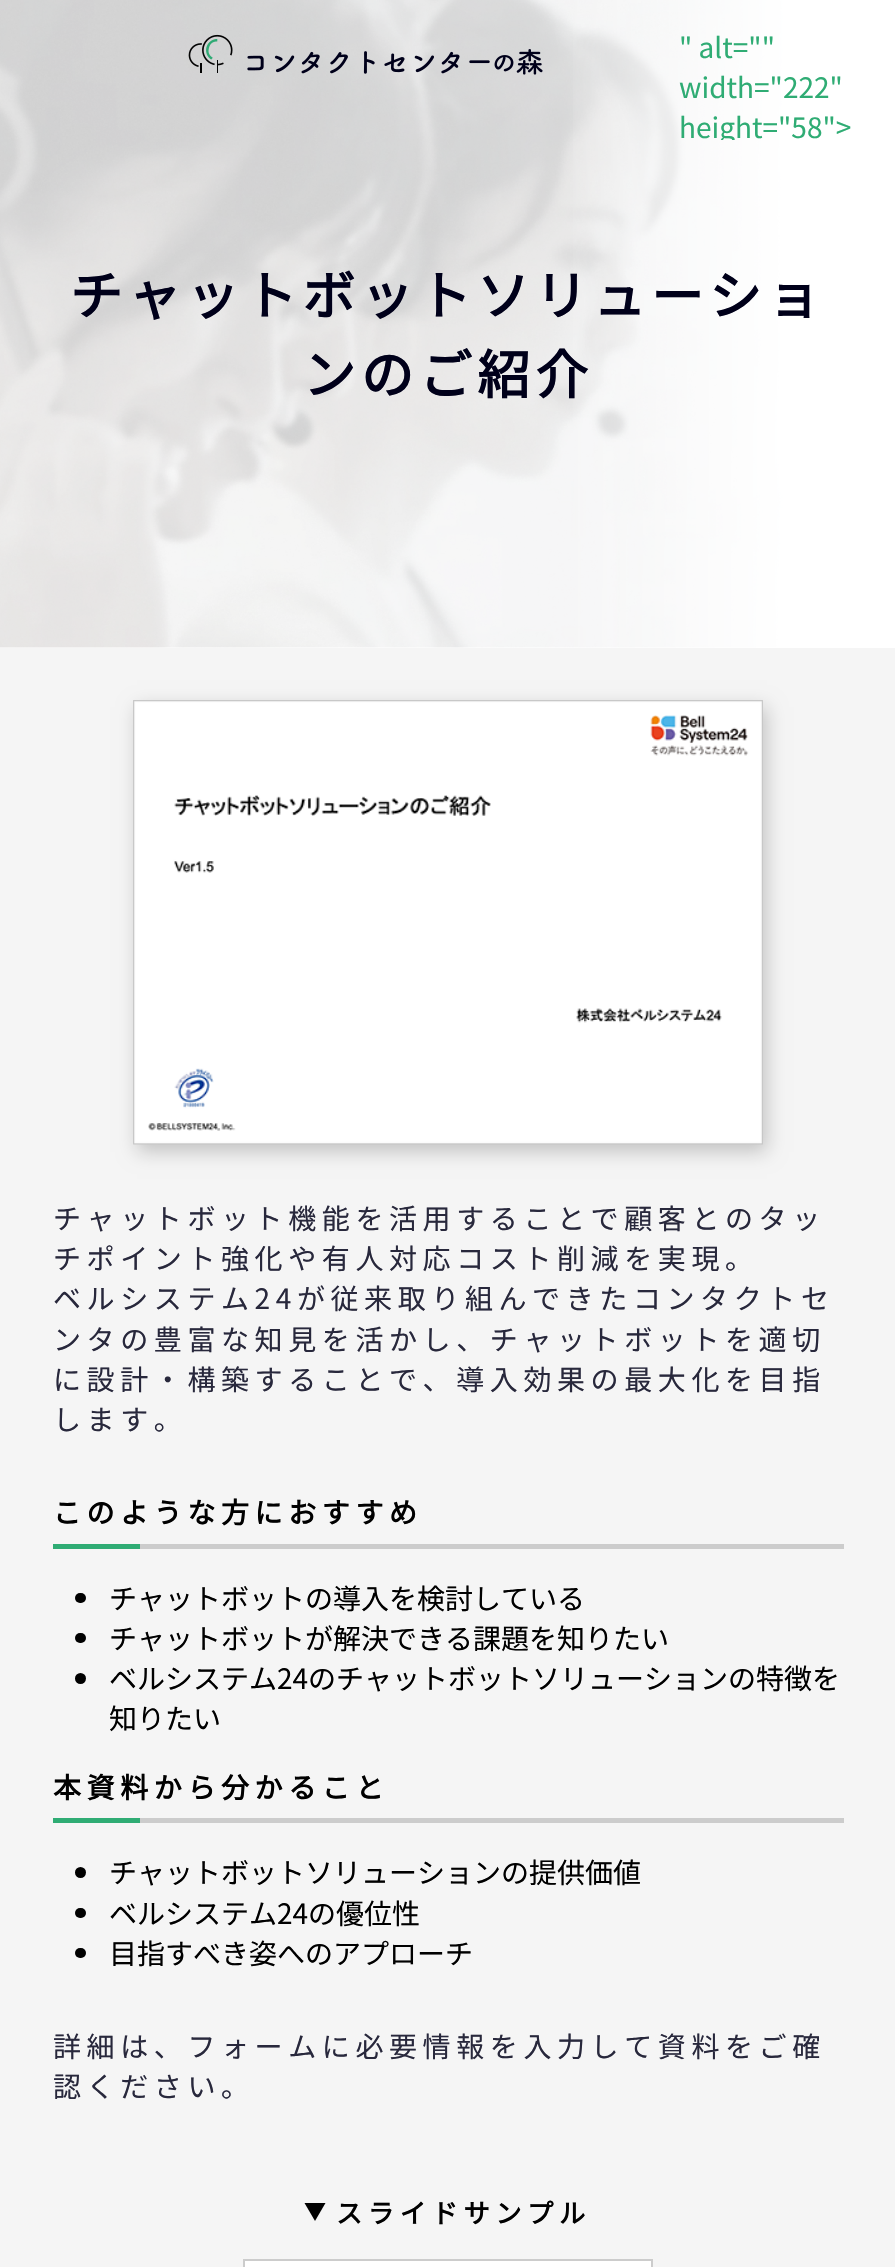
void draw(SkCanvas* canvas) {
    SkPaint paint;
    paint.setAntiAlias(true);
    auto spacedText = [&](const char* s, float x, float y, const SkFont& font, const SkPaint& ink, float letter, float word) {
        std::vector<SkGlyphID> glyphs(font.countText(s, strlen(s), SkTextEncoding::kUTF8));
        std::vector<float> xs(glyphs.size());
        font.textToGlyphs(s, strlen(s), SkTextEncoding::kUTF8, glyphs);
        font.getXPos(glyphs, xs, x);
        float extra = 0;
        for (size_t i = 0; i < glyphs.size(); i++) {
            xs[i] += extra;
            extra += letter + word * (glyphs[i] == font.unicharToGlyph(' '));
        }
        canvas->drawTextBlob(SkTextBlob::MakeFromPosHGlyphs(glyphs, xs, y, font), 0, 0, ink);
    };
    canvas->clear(0xFFFFFFFF);
    canvas->drawImageRect(SkImages::DeferredFromEncodedData(SkData::MakeFromFileName("img2.png")), SkRect::MakeXYWH(0, 0, 798, 648), SkSamplingOptions());
    canvas->drawImageRect(SkImages::DeferredFromEncodedData(SkData::MakeFromFileName("img1.png")), SkRect::MakeXYWH(188, 34, 355, 41), SkSamplingOptions());
    {
        const SkColor colors[] = {0xFFFFFFFF, 0x00FFFFFF};
        const float stops[] = {0.11f, 0.38f};
        const SkPoint ends[] = {{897, 317}, {-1.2f, 313}};
        paint.setShader(SkGradientShader::MakeLinear(ends, colors, stops, 2, SkTileMode::kClamp));
        paint.setAlpha(255);
    }
    canvas->drawRect(SkRect::MakeXYWH(573, 0, 225, 648), paint);
    SkFont font1(fontMgr->matchFamilyStyle("Noto Sans JP", SkFontStyle(100, SkFontStyle::kNormal_Width, SkFontStyle::kUpright_Slant)), 28);
    font1.setSubpixel(true);
    paint.setShader(nullptr);
    paint.setColor(0xFF2FAC74);
    canvas->drawString("\" alt=\"\"", 679, 58, font1, paint);
    canvas->drawString("width=\"222\"", 679, 98, font1, paint);
    canvas->save();
    canvas->clipRect(SkRect::MakeXYWH(0, 0, 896, 140));
    canvas->drawString("height=\"58\">", 679, 138, font1, paint);
    canvas->restore();
    SkFont font2(fontMgr->matchFamilyStyle("Noto Sans JP", SkFontStyle::Bold()), 52.5f);
    font2.setSubpixel(true);
    paint.setColor(0xFF00001A);
    spacedText("チャットボットソリューショ", 70, 315, font2, paint, 5.6f, 0);
    spacedText("ンのご紹介", 303, 394, font2, paint, 5.6f, 0);
    paint.setColor(0xFFF5F5F5);
    canvas->drawRect(SkRect::MakeXYWH(0, 648, 895, 1619), paint);
    paint.setColor(0x33000000);
    paint.setMaskFilter(SkMaskFilter::MakeBlur(kNormal_SkBlurStyle, 9));
    canvas->drawRect(SkRect::MakeXYWH(137, 707, 630, 445), paint);
    paint.setMaskFilter(nullptr);
    canvas->drawImageRect(SkImages::DeferredFromEncodedData(SkData::MakeFromFileName("img3.png")), SkRect::MakeXYWH(133, 700, 630, 445), SkSamplingOptions());
    paint.setColor(0xFF28283C);
    spacedText("チャットボット機能を活用することで顧客とのタッ", 53, 1229, font1, paint, 5.6f, 0);
    spacedText("チポイント強化や有人対応コスト削減を実現。", 53, 1269, font1, paint, 5.6f, 0);
    spacedText("ベルシステム24が従来取り組んできたコンタクトセ", 53, 1309, font1, paint, 5.6f, 0);
    spacedText("ンタの豊富な知見を活かし、チャットボットを適切", 53, 1350, font1, paint, 5.6f, 0);
    spacedText("に設計・構築することで、導入効果の最大化を目指", 53, 1390, font1, paint, 5.6f, 0);
    spacedText("します。", 53, 1430, font1, paint, 5.6f, 0);
    paint.setColor(0xFFCCCCCC);
    canvas->drawRect(SkRect::MakeXYWH(140, 1544, 704, 5), paint);
    SkFont font3(fontMgr->matchFamilyStyle("Noto Sans JP", SkFontStyle::Bold()), 28);
    font3.setSubpixel(true);
    paint.setColor(0xFF000000);
    spacedText("このような方におすすめ", 53, 1523, font3, paint, 5.6f, 0);
    paint.setColor(0xFF2FAC74);
    canvas->drawRect(SkRect::MakeXYWH(53, 1544, 87, 5), paint);
    paint.setColor(0xFF000000);
    canvas->drawRoundRect(SkRect::MakeXYWH(75, 1593, 11, 10), 5, 5, paint);
    canvas->drawString("チャットボットの導入を検討している", 109, 1609, font1, paint);
    canvas->drawRoundRect(SkRect::MakeXYWH(75, 1633, 11, 10), 5, 5, paint);
    canvas->drawString("チャットボットが解決できる課題を知りたい", 109, 1649, font1, paint);
    canvas->drawCircle(80.5f, 1678.5f, 5.5f, paint);
    canvas->drawString("ベルシステム24のチャットボットソリューションの特徴を", 109, 1689, font1, paint);
    canvas->drawString("知りたい", 109, 1729, font1, paint);
    paint.setColor(0xFFCCCCCC);
    canvas->drawRect(SkRect::MakeXYWH(140, 1818, 704, 5), paint);
    paint.setColor(0xFF000000);
    spacedText("本資料から分かること", 53, 1798, font3, paint, 5.6f, 0);
    paint.setColor(0xFF2FAC74);
    canvas->drawRect(SkRect::MakeXYWH(53, 1818, 87, 5), paint);
    paint.setColor(0xFF000000);
    canvas->drawCircle(80.5f, 1872.5f, 5.5f, paint);
    canvas->drawString("チャットボットソリューションの提供価値", 109, 1883, font1, paint);
    canvas->drawRoundRect(SkRect::MakeXYWH(75, 1908, 11, 10), 5, 5, paint);
    canvas->drawString("ベルシステム24の優位性", 109, 1924, font1, paint);
    canvas->drawRoundRect(SkRect::MakeXYWH(75, 1948, 11, 10), 5, 5, paint);
    canvas->drawString("目指すべき姿へのアプローチ", 109, 1964, font1, paint);
    paint.setColor(0xFF28283C);
    spacedText("詳細は、フォームに必要情報を入力して資料をご確", 53, 2057, font1, paint, 5.6f, 0);
    spacedText("認ください。", 53, 2097, font1, paint, 5.6f, 0);
    paint.setColor(0xFF000000);
    canvas->drawPath(SkPathBuilder().moveTo(304.5f, 2203).lineTo(325.5f, 2203).lineTo(315, 2221).close().detach(), paint);
    SkFont font4(fontMgr->matchFamilyStyle("Noto Sans JP", SkFontStyle::Bold()), 26.25f);
    font4.setSubpixel(true);
    spacedText("スライドサンプル", 336, 2223, font4, paint, 5.6f, 0);
    paint.setStyle(SkPaint::kStroke_Style);
    paint.setStrokeWidth(2);
    paint.setColor(0xFFCCCCCC);
    canvas->drawRect(SkRect::MakeXYWH(244, 2260, 408, 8), paint);
    paint.setStyle(SkPaint::kFill_Style);
    paint.setColor(0xFFFFFFFF);
    canvas->drawRect(SkRect::MakeXYWH(245, 2261, 406, 6), paint);
}
